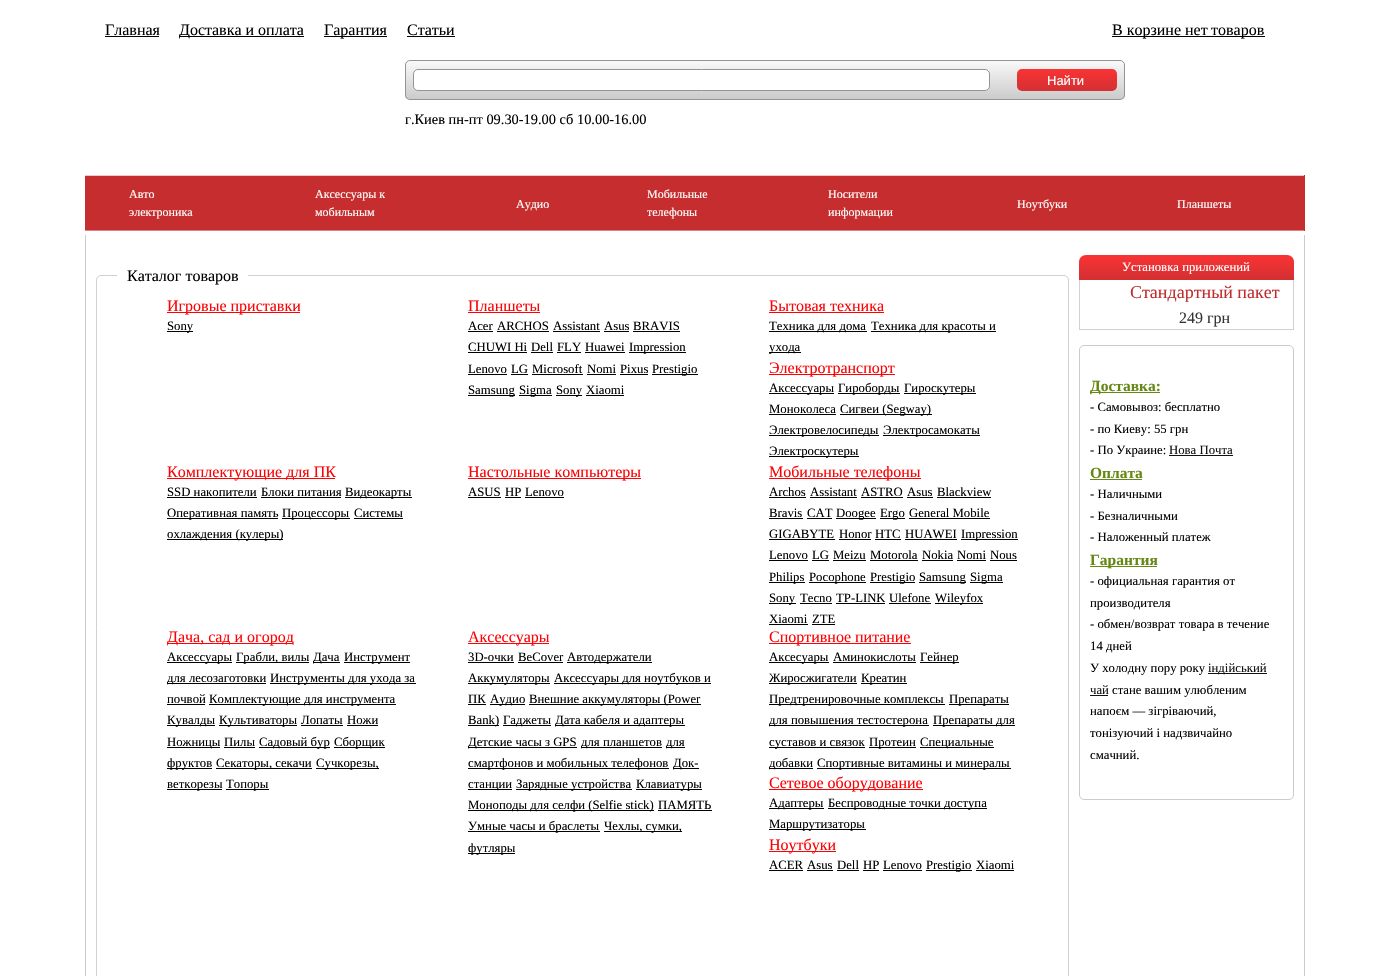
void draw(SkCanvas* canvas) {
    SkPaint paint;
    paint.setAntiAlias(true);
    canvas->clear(0xFFFFFFFF);
    SkFont font1(fontMgr->matchFamilyStyle("Liberation Serif", SkFontStyle::Normal()), 16);
    font1.setSubpixel(true);
    paint.setColor(0xFF000000);
    canvas->drawString("Главная", 105, 35, font1, paint);
    canvas->drawRect(SkRect::MakeXYWH(105, 36, 54, 1), paint);
    canvas->drawRect(SkRect::MakeXYWH(179, 36, 125, 1), paint);
    canvas->drawString("Доставка и оплата", 179, 35, font1, paint);
    canvas->drawRect(SkRect::MakeXYWH(324, 36, 63, 1), paint);
    canvas->drawString("Гарантия", 324, 35, font1, paint);
    canvas->drawString("Статьи", 407, 35, font1, paint);
    canvas->drawRect(SkRect::MakeXYWH(407, 36, 48, 1), paint);
    canvas->drawRect(SkRect::MakeXYWH(1112, 36, 95, 1), paint);
    canvas->drawString("В корзине нет", 1112, 35, font1, paint);
    canvas->drawRect(SkRect::MakeXYWH(1207, 36, 58, 1), paint);
    canvas->drawString("товаров", 1211, 35, font1, paint);
    canvas->save();
    canvas->clipPath(SkPathBuilder().moveTo(410, 60).lineTo(1120, 60).cubicTo(1123, 60, 1125, 62, 1125, 65).lineTo(1125, 95).cubicTo(1125, 98, 1123, 100, 1120, 100).lineTo(410, 100).cubicTo(407, 100, 405, 98, 405, 95).lineTo(405, 65).cubicTo(405, 62, 407, 60, 410, 60).close().detach(), true);
    {
        const SkColor colors[] = {0xFFF9F9F9, 0xFFCCCBCB};
        const float stops[] = {0, 1};
        const SkPoint ends[] = {{765, 61}, {765, 99}};
        paint.setShader(SkGradientShader::MakeLinear(ends, colors, stops, 2, SkTileMode::kClamp));
        paint.setAlpha(255);
    }
    canvas->drawRect(SkRect::MakeXYWH(405, 61, 720, 38), paint);
    canvas->restore();
    paint.setStyle(SkPaint::kStroke_Style);
    paint.setStrokeWidth(1);
    paint.setShader(nullptr);
    paint.setColor(0xFF949494);
    canvas->drawRoundRect(SkRect::MakeXYWH(405.5f, 60.5f, 719, 39), 4.5f, 4.5f, paint);
    paint.setStyle(SkPaint::kFill_Style);
    paint.setColor(0xFFFFFFFF);
    canvas->drawRoundRect(SkRect::MakeXYWH(413.5f, 69.5f, 576, 21), 4.5f, 4.5f, paint);
    paint.setStyle(SkPaint::kStroke_Style);
    paint.setColor(0xFF949494);
    canvas->drawRoundRect(SkRect::MakeXYWH(413.5f, 69.5f, 576, 21), 4.5f, 4.5f, paint);
    paint.setStyle(SkPaint::kFill_Style);
    {
        const SkColor colors[] = {0xFFFA3334, 0xFFD33032};
        const float stops[] = {0, 1};
        const SkPoint ends[] = {{1067, 69}, {1067, 91}};
        paint.setShader(SkGradientShader::MakeLinear(ends, colors, stops, 2, SkTileMode::kClamp));
        paint.setAlpha(255);
    }
    canvas->drawRoundRect(SkRect::MakeXYWH(1017, 69, 100, 22), 5, 5, paint);
    SkFont font2(fontMgr->matchFamilyStyle("Liberation Sans", SkFontStyle::Normal()), 13);
    font2.setSubpixel(true);
    paint.setShader(nullptr);
    paint.setColor(0xFFFFFFFF);
    canvas->drawString("Найти", 1047, 85, font2, paint);
    SkFont font3(fontMgr->matchFamilyStyle("Liberation Serif", SkFontStyle::Normal()), 14.4f);
    font3.setSubpixel(true);
    paint.setColor(0xFF000000);
    canvas->drawString("г.Киев пн-пт 09.30-19.00 сб 10.00-16.00", 405, 124, font3, paint);
    paint.setColor(0xFFC52D2E);
    canvas->drawRect(SkRect::MakeXYWH(85, 175, 1220, 56), paint);
    paint.setColor(0xFFF0C7C7);
    canvas->drawRect(SkRect::MakeXYWH(85, 175, 1219, 1), paint);
    paint.setColor(0xFFD98081);
    canvas->drawRect(SkRect::MakeXYWH(85, 230, 1219, 1), paint);
    SkFont font4(fontMgr->matchFamilyStyle("Liberation Serif", SkFontStyle::Normal()), 12);
    font4.setSubpixel(true);
    paint.setColor(0xFFFFFFFF);
    canvas->drawString("Авто", 129, 198, font4, paint);
    canvas->drawString("электроника", 129, 216, font4, paint);
    canvas->drawString("Аксессуары к", 315, 198, font4, paint);
    canvas->drawString("мобильным", 315, 216, font4, paint);
    canvas->drawString("Аудио", 516, 208, font4, paint);
    canvas->drawString("Мобильные", 647, 198, font4, paint);
    canvas->drawString("телефоны", 647, 216, font4, paint);
    canvas->drawString("Носители", 828, 198, font4, paint);
    canvas->drawString("информации", 828, 216, font4, paint);
    canvas->drawString("Ноутбуки", 1017, 208, font4, paint);
    canvas->drawString("Планшеты", 1177, 208, font4, paint);
    paint.setColor(0xFFCCCCCC);
    canvas->drawRect(SkRect::MakeXYWH(1304, 235, 1, 741), paint);
    canvas->drawRect(SkRect::MakeXYWH(85, 235, 1, 741), paint);
    paint.setStyle(SkPaint::kStroke_Style);
    paint.setColor(0xFFD2CFCF);
    canvas->drawRoundRect(SkRect::MakeXYWH(96.5f, 275.5f, 972, 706), 4.5f, 4.5f, paint);
    paint.setStyle(SkPaint::kFill_Style);
    paint.setColor(0xFFFFFFFF);
    canvas->drawRect(SkRect::MakeXYWH(117, 275, 131, 1), paint);
    paint.setColor(0xFF000000);
    canvas->drawString("Каталог товаров", 127, 281, font1, paint);
    paint.setColor(0xFFFC0204);
    canvas->drawRect(SkRect::MakeXYWH(167, 312, 133, 1), paint);
    canvas->drawString("Игровые приставки", 167, 311, font1, paint);
    paint.setColor(0xFF000000);
    canvas->drawRect(SkRect::MakeXYWH(167, 331, 26, 1), paint);
    SkFont font5(fontMgr->matchFamilyStyle("Liberation Serif", SkFontStyle::Normal()), 12.75f);
    font5.setSubpixel(true);
    canvas->drawString("Sony", 167, 330, font5, paint);
    paint.setColor(0xFFFC0204);
    canvas->drawString("Планшеты", 468, 311, font1, paint);
    canvas->drawRect(SkRect::MakeXYWH(468, 312, 72, 1), paint);
    paint.setColor(0xFF000000);
    canvas->drawString("Acer", 468, 330, font5, paint);
    canvas->drawRect(SkRect::MakeXYWH(468, 331, 25, 1), paint);
    canvas->drawString("ARCHOS", 497, 330, font5, paint);
    canvas->drawRect(SkRect::MakeXYWH(497, 331, 52, 1), paint);
    canvas->drawString("Assistant", 553, 330, font5, paint);
    canvas->drawRect(SkRect::MakeXYWH(553, 331, 47, 1), paint);
    canvas->drawString("Asus", 604, 330, font5, paint);
    canvas->drawRect(SkRect::MakeXYWH(604, 331, 25, 1), paint);
    canvas->drawString("BRAVIS", 633, 330, font5, paint);
    canvas->drawRect(SkRect::MakeXYWH(633, 331, 47, 1), paint);
    canvas->drawString("CHUWI Hi", 468, 351, font5, paint);
    canvas->drawRect(SkRect::MakeXYWH(468, 352, 59, 1), paint);
    canvas->drawString("Dell", 531, 351, font5, paint);
    canvas->drawRect(SkRect::MakeXYWH(531, 352, 22, 1), paint);
    canvas->drawString("FLY", 557, 351, font5, paint);
    canvas->drawRect(SkRect::MakeXYWH(557, 352, 24, 1), paint);
    canvas->drawString("Huawei", 585, 351, font5, paint);
    canvas->drawRect(SkRect::MakeXYWH(585, 352, 40, 1), paint);
    canvas->drawRect(SkRect::MakeXYWH(629, 352, 57, 1), paint);
    canvas->drawString("Impression", 629, 351, font5, paint);
    canvas->drawString("Lenovo", 468, 373, font5, paint);
    canvas->drawRect(SkRect::MakeXYWH(468, 374, 39, 1), paint);
    canvas->drawString("LG", 511, 373, font5, paint);
    canvas->drawRect(SkRect::MakeXYWH(511, 374, 17, 1), paint);
    canvas->drawString("Microsoft", 532, 373, font5, paint);
    canvas->drawRect(SkRect::MakeXYWH(532, 374, 51, 1), paint);
    canvas->drawString("Nomi", 587, 373, font5, paint);
    canvas->drawRect(SkRect::MakeXYWH(587, 374, 29, 1), paint);
    canvas->drawString("Pixus", 620, 373, font5, paint);
    canvas->drawRect(SkRect::MakeXYWH(620, 374, 28, 1), paint);
    canvas->drawRect(SkRect::MakeXYWH(652, 374, 46, 1), paint);
    canvas->drawString("Prestigio", 652, 373, font5, paint);
    canvas->drawRect(SkRect::MakeXYWH(468, 395, 47, 1), paint);
    canvas->drawString("Samsung", 468, 394, font5, paint);
    canvas->drawRect(SkRect::MakeXYWH(519, 395, 33, 1), paint);
    canvas->drawString("Sigma", 519, 394, font5, paint);
    canvas->drawRect(SkRect::MakeXYWH(556, 395, 26, 1), paint);
    canvas->drawString("Sony", 556, 394, font5, paint);
    canvas->drawString("Xiaomi", 586, 394, font5, paint);
    canvas->drawRect(SkRect::MakeXYWH(586, 395, 38, 1), paint);
    paint.setColor(0xFFFC0204);
    canvas->drawString("Бытовая техника", 769, 311, font1, paint);
    canvas->drawRect(SkRect::MakeXYWH(769, 312, 115, 1), paint);
    paint.setColor(0xFF000000);
    canvas->drawRect(SkRect::MakeXYWH(769, 331, 98, 1), paint);
    canvas->drawString("Техника для дома", 769, 330, font5, paint);
    canvas->drawRect(SkRect::MakeXYWH(871, 331, 125, 1), paint);
    canvas->drawString("Техника для красоты и", 871, 330, font5, paint);
    canvas->drawRect(SkRect::MakeXYWH(769, 352, 32, 1), paint);
    canvas->drawString("ухода", 769, 351, font5, paint);
    paint.setColor(0xFFFC0204);
    canvas->drawRect(SkRect::MakeXYWH(769, 374, 126, 1), paint);
    canvas->drawString("Электротранспорт", 769, 373, font1, paint);
    paint.setColor(0xFF000000);
    canvas->drawRect(SkRect::MakeXYWH(769, 393, 65, 1), paint);
    canvas->drawString("Аксессуары", 769, 392, font5, paint);
    canvas->drawRect(SkRect::MakeXYWH(838, 393, 62, 1), paint);
    canvas->drawString("Гироборды", 838, 392, font5, paint);
    canvas->drawRect(SkRect::MakeXYWH(904, 393, 72, 1), paint);
    canvas->drawString("Гироскутеры", 904, 392, font5, paint);
    canvas->drawString("Моноколеса", 769, 413, font5, paint);
    canvas->drawRect(SkRect::MakeXYWH(769, 414, 67, 1), paint);
    canvas->drawRect(SkRect::MakeXYWH(840, 414, 92, 1), paint);
    canvas->drawString("Сигвеи (Segway)", 840, 413, font5, paint);
    canvas->drawRect(SkRect::MakeXYWH(769, 435, 110, 1), paint);
    canvas->drawString("Электровелосипеды", 769, 434, font5, paint);
    canvas->drawRect(SkRect::MakeXYWH(883, 435, 97, 1), paint);
    canvas->drawString("Электросамокаты", 883, 434, font5, paint);
    canvas->drawRect(SkRect::MakeXYWH(769, 456, 90, 1), paint);
    canvas->drawString("Электроскутеры", 769, 455, font5, paint);
    paint.setColor(0xFFFC0204);
    canvas->drawRect(SkRect::MakeXYWH(167, 478, 168, 1), paint);
    canvas->drawString("Комплектующие для ПК", 167, 477, font1, paint);
    paint.setColor(0xFF000000);
    canvas->drawString("SSD накопители", 167, 496, font5, paint);
    canvas->drawRect(SkRect::MakeXYWH(167, 497, 90, 1), paint);
    canvas->drawString("Блоки питания", 261, 496, font5, paint);
    canvas->drawRect(SkRect::MakeXYWH(261, 497, 80, 1), paint);
    canvas->drawRect(SkRect::MakeXYWH(345, 497, 67, 1), paint);
    canvas->drawString("Видеокарты", 345, 496, font5, paint);
    canvas->drawRect(SkRect::MakeXYWH(167, 518, 111, 1), paint);
    canvas->drawString("Оперативная память", 167, 517, font5, paint);
    canvas->drawRect(SkRect::MakeXYWH(282, 518, 68, 1), paint);
    canvas->drawString("Процессоры", 282, 517, font5, paint);
    canvas->drawString("Системы", 354, 517, font5, paint);
    canvas->drawRect(SkRect::MakeXYWH(354, 518, 49, 1), paint);
    canvas->drawRect(SkRect::MakeXYWH(167, 539, 116, 1), paint);
    canvas->drawString("охлаждения (кулеры)", 167, 538, font5, paint);
    paint.setColor(0xFFFC0204);
    canvas->drawRect(SkRect::MakeXYWH(468, 478, 173, 1), paint);
    canvas->drawString("Настольные компьютеры", 468, 477, font1, paint);
    paint.setColor(0xFF000000);
    canvas->drawString("ASUS", 468, 496, font5, paint);
    canvas->drawRect(SkRect::MakeXYWH(468, 497, 33, 1), paint);
    canvas->drawString("HP", 505, 496, font5, paint);
    canvas->drawRect(SkRect::MakeXYWH(505, 497, 16, 1), paint);
    canvas->drawString("Lenovo", 525, 496, font5, paint);
    canvas->drawRect(SkRect::MakeXYWH(525, 497, 39, 1), paint);
    paint.setColor(0xFFFC0204);
    canvas->drawRect(SkRect::MakeXYWH(769, 478, 152, 1), paint);
    canvas->drawString("Мобильные телефоны", 769, 477, font1, paint);
    paint.setColor(0xFF000000);
    canvas->drawString("Archos", 769, 496, font5, paint);
    canvas->drawRect(SkRect::MakeXYWH(769, 497, 37, 1), paint);
    canvas->drawString("Assistant", 810, 496, font5, paint);
    canvas->drawRect(SkRect::MakeXYWH(810, 497, 47, 1), paint);
    canvas->drawString("ASTRO", 861, 496, font5, paint);
    canvas->drawRect(SkRect::MakeXYWH(861, 497, 42, 1), paint);
    canvas->drawString("Asus", 907, 496, font5, paint);
    canvas->drawRect(SkRect::MakeXYWH(907, 497, 26, 1), paint);
    canvas->drawString("Blackview", 937, 496, font5, paint);
    canvas->drawRect(SkRect::MakeXYWH(937, 497, 54, 1), paint);
    canvas->drawString("Bravis", 769, 517, font5, paint);
    canvas->drawRect(SkRect::MakeXYWH(769, 518, 34, 1), paint);
    canvas->drawString("CAT", 807, 517, font5, paint);
    canvas->drawRect(SkRect::MakeXYWH(807, 518, 25, 1), paint);
    canvas->drawRect(SkRect::MakeXYWH(836, 518, 40, 1), paint);
    canvas->drawString("Doogee", 836, 517, font5, paint);
    canvas->drawRect(SkRect::MakeXYWH(880, 518, 25, 1), paint);
    canvas->drawString("Ergo", 880, 517, font5, paint);
    canvas->drawString("General Mobile", 909, 517, font5, paint);
    canvas->drawRect(SkRect::MakeXYWH(909, 518, 81, 1), paint);
    canvas->drawString("GIGABYTE", 769, 538, font5, paint);
    canvas->drawRect(SkRect::MakeXYWH(769, 539, 66, 1), paint);
    canvas->drawString("Honor", 839, 538, font5, paint);
    canvas->drawRect(SkRect::MakeXYWH(839, 539, 32, 1), paint);
    canvas->drawString("HTC", 875, 538, font5, paint);
    canvas->drawRect(SkRect::MakeXYWH(875, 539, 26, 1), paint);
    canvas->drawString("HUAWEI", 905, 538, font5, paint);
    canvas->drawRect(SkRect::MakeXYWH(905, 539, 52, 1), paint);
    canvas->drawRect(SkRect::MakeXYWH(961, 539, 57, 1), paint);
    canvas->drawString("Impression", 961, 538, font5, paint);
    canvas->drawString("Lenovo", 769, 559, font5, paint);
    canvas->drawRect(SkRect::MakeXYWH(769, 560, 39, 1), paint);
    canvas->drawString("LG", 812, 559, font5, paint);
    canvas->drawRect(SkRect::MakeXYWH(812, 560, 17, 1), paint);
    canvas->drawString("Meizu", 833, 559, font5, paint);
    canvas->drawRect(SkRect::MakeXYWH(833, 560, 33, 1), paint);
    canvas->drawString("Motorola", 870, 559, font5, paint);
    canvas->drawRect(SkRect::MakeXYWH(870, 560, 48, 1), paint);
    canvas->drawString("Nokia", 922, 559, font5, paint);
    canvas->drawRect(SkRect::MakeXYWH(922, 560, 31, 1), paint);
    canvas->drawString("Nomi", 957, 559, font5, paint);
    canvas->drawRect(SkRect::MakeXYWH(957, 560, 29, 1), paint);
    canvas->drawString("Nous", 990, 559, font5, paint);
    canvas->drawRect(SkRect::MakeXYWH(990, 560, 27, 1), paint);
    canvas->drawRect(SkRect::MakeXYWH(769, 582, 36, 1), paint);
    canvas->drawString("Philips", 769, 581, font5, paint);
    canvas->drawRect(SkRect::MakeXYWH(809, 582, 57, 1), paint);
    canvas->drawString("Pocophone", 809, 581, font5, paint);
    canvas->drawRect(SkRect::MakeXYWH(870, 582, 45, 1), paint);
    canvas->drawString("Prestigio", 870, 581, font5, paint);
    canvas->drawRect(SkRect::MakeXYWH(919, 582, 47, 1), paint);
    canvas->drawString("Samsung", 919, 581, font5, paint);
    canvas->drawRect(SkRect::MakeXYWH(970, 582, 33, 1), paint);
    canvas->drawString("Sigma", 970, 581, font5, paint);
    canvas->drawRect(SkRect::MakeXYWH(769, 603, 27, 1), paint);
    canvas->drawString("Sony", 769, 602, font5, paint);
    canvas->drawString("Tecno", 800, 602, font5, paint);
    canvas->drawRect(SkRect::MakeXYWH(800, 603, 32, 1), paint);
    canvas->drawString("TP-LINK", 836, 602, font5, paint);
    canvas->drawRect(SkRect::MakeXYWH(836, 603, 49, 1), paint);
    canvas->drawString("Ulefone", 889, 602, font5, paint);
    canvas->drawRect(SkRect::MakeXYWH(889, 603, 42, 1), paint);
    canvas->drawRect(SkRect::MakeXYWH(935, 603, 48, 1), paint);
    canvas->drawString("Wileyfox", 935, 602, font5, paint);
    canvas->drawString("Xiaomi", 769, 623, font5, paint);
    canvas->drawRect(SkRect::MakeXYWH(769, 624, 39, 1), paint);
    canvas->drawString("ZTE", 812, 623, font5, paint);
    canvas->drawRect(SkRect::MakeXYWH(812, 624, 23, 1), paint);
    paint.setColor(0xFFFC0204);
    canvas->drawRect(SkRect::MakeXYWH(167, 643, 126, 1), paint);
    canvas->drawString("Дача, сад и огород", 167, 642, font1, paint);
    paint.setColor(0xFF000000);
    canvas->drawRect(SkRect::MakeXYWH(167, 662, 65, 1), paint);
    canvas->drawString("Аксессуары", 167, 661, font5, paint);
    canvas->drawRect(SkRect::MakeXYWH(236, 662, 73, 1), paint);
    canvas->drawString("Грабли, вилы", 236, 661, font5, paint);
    canvas->drawRect(SkRect::MakeXYWH(313, 662, 27, 1), paint);
    canvas->drawString("Дача", 313, 661, font5, paint);
    canvas->drawRect(SkRect::MakeXYWH(344, 662, 66, 1), paint);
    canvas->drawString("Инструмент", 344, 661, font5, paint);
    canvas->drawRect(SkRect::MakeXYWH(167, 683, 99, 1), paint);
    canvas->drawString("для лесозаготовки", 167, 682, font5, paint);
    canvas->drawRect(SkRect::MakeXYWH(270, 683, 146, 1), paint);
    canvas->drawString("Инструменты для ухода за", 270, 682, font5, paint);
    canvas->drawString("почвой", 167, 703, font5, paint);
    canvas->drawRect(SkRect::MakeXYWH(167, 704, 38, 1), paint);
    canvas->drawRect(SkRect::MakeXYWH(209, 704, 187, 1), paint);
    canvas->drawString("Комплектующие для инструмента", 209, 703, font5, paint);
    canvas->drawRect(SkRect::MakeXYWH(167, 725, 48, 1), paint);
    canvas->drawString("Кувалды", 167, 724, font5, paint);
    canvas->drawRect(SkRect::MakeXYWH(219, 725, 78, 1), paint);
    canvas->drawString("Культиваторы", 219, 724, font5, paint);
    canvas->drawString("Лопаты", 301, 724, font5, paint);
    canvas->drawRect(SkRect::MakeXYWH(301, 725, 42, 1), paint);
    canvas->drawString("Ножи", 347, 724, font5, paint);
    canvas->drawRect(SkRect::MakeXYWH(347, 725, 31, 1), paint);
    canvas->drawRect(SkRect::MakeXYWH(167, 747, 53, 1), paint);
    canvas->drawString("Ножницы", 167, 746, font5, paint);
    canvas->drawString("Пилы", 224, 746, font5, paint);
    canvas->drawRect(SkRect::MakeXYWH(224, 747, 31, 1), paint);
    canvas->drawRect(SkRect::MakeXYWH(259, 747, 71, 1), paint);
    canvas->drawString("Садовый бур", 259, 746, font5, paint);
    canvas->drawRect(SkRect::MakeXYWH(334, 747, 51, 1), paint);
    canvas->drawString("Сборщик", 334, 746, font5, paint);
    canvas->drawRect(SkRect::MakeXYWH(167, 768, 45, 1), paint);
    canvas->drawString("фруктов", 167, 767, font5, paint);
    canvas->drawRect(SkRect::MakeXYWH(216, 768, 96, 1), paint);
    canvas->drawString("Секаторы, секачи", 216, 767, font5, paint);
    canvas->drawRect(SkRect::MakeXYWH(316, 768, 63, 1), paint);
    canvas->drawString("Сучкорезы,", 316, 767, font5, paint);
    canvas->drawRect(SkRect::MakeXYWH(167, 789, 55, 1), paint);
    canvas->drawString("веткорезы", 167, 788, font5, paint);
    canvas->drawRect(SkRect::MakeXYWH(226, 789, 43, 1), paint);
    canvas->drawString("Топоры", 226, 788, font5, paint);
    paint.setColor(0xFFFC0204);
    canvas->drawRect(SkRect::MakeXYWH(468, 643, 81, 1), paint);
    canvas->drawString("Аксессуары", 468, 642, font1, paint);
    paint.setColor(0xFF000000);
    canvas->drawString("3D-очки", 468, 661, font5, paint);
    canvas->drawRect(SkRect::MakeXYWH(468, 662, 46, 1), paint);
    canvas->drawString("BeCover", 518, 661, font5, paint);
    canvas->drawRect(SkRect::MakeXYWH(518, 662, 45, 1), paint);
    canvas->drawRect(SkRect::MakeXYWH(567, 662, 85, 1), paint);
    canvas->drawString("Автодержатели", 567, 661, font5, paint);
    canvas->drawRect(SkRect::MakeXYWH(468, 683, 82, 1), paint);
    canvas->drawString("Аккумуляторы", 468, 682, font5, paint);
    canvas->drawRect(SkRect::MakeXYWH(554, 683, 157, 1), paint);
    canvas->drawString("Аксессуары для ноутбуков и", 554, 682, font5, paint);
    canvas->drawString("ПК", 468, 703, font5, paint);
    canvas->drawRect(SkRect::MakeXYWH(468, 704, 18, 1), paint);
    canvas->drawRect(SkRect::MakeXYWH(490, 704, 35, 1), paint);
    canvas->drawString("Аудио", 490, 703, font5, paint);
    canvas->drawRect(SkRect::MakeXYWH(529, 704, 172, 1), paint);
    canvas->drawString("Внешние аккумуляторы (Power", 529, 703, font5, paint);
    canvas->drawRect(SkRect::MakeXYWH(468, 725, 31, 1), paint);
    canvas->drawString("Bank)", 468, 724, font5, paint);
    canvas->drawRect(SkRect::MakeXYWH(503, 725, 48, 1), paint);
    canvas->drawString("Гаджеты", 503, 724, font5, paint);
    canvas->drawRect(SkRect::MakeXYWH(555, 725, 130, 1), paint);
    canvas->drawString("Дата кабеля и адаптеры", 555, 724, font5, paint);
    canvas->drawRect(SkRect::MakeXYWH(468, 747, 109, 1), paint);
    canvas->drawString("Детские часы з GPS", 468, 746, font5, paint);
    canvas->drawRect(SkRect::MakeXYWH(581, 747, 81, 1), paint);
    canvas->drawString("для планшетов", 581, 746, font5, paint);
    canvas->drawRect(SkRect::MakeXYWH(666, 747, 19, 1), paint);
    canvas->drawString("для", 666, 746, font5, paint);
    canvas->drawRect(SkRect::MakeXYWH(468, 768, 201, 1), paint);
    canvas->drawString("смартфонов и мобильных телефонов", 468, 767, font5, paint);
    canvas->drawRect(SkRect::MakeXYWH(673, 768, 26, 1), paint);
    canvas->drawString("Док-", 673, 767, font5, paint);
    canvas->drawRect(SkRect::MakeXYWH(468, 789, 44, 1), paint);
    canvas->drawString("станции", 468, 788, font5, paint);
    canvas->drawRect(SkRect::MakeXYWH(516, 789, 116, 1), paint);
    canvas->drawString("Зарядные устройства", 516, 788, font5, paint);
    canvas->drawRect(SkRect::MakeXYWH(636, 789, 66, 1), paint);
    canvas->drawString("Клавиатуры", 636, 788, font5, paint);
    canvas->drawRect(SkRect::MakeXYWH(468, 810, 186, 1), paint);
    canvas->drawString("Моноподы для селфи (Selfie stick)", 468, 809, font5, paint);
    canvas->drawString("ПАМЯТЬ", 658, 809, font5, paint);
    canvas->drawRect(SkRect::MakeXYWH(658, 810, 54, 1), paint);
    canvas->drawRect(SkRect::MakeXYWH(468, 831, 132, 1), paint);
    canvas->drawString("Умные часы и браслеты", 468, 830, font5, paint);
    canvas->drawRect(SkRect::MakeXYWH(604, 831, 78, 1), paint);
    canvas->drawString("Чехлы, сумки,", 604, 830, font5, paint);
    canvas->drawRect(SkRect::MakeXYWH(468, 853, 47, 1), paint);
    canvas->drawString("футляры", 468, 852, font5, paint);
    paint.setColor(0xFFFC0204);
    canvas->drawRect(SkRect::MakeXYWH(769, 643, 142, 1), paint);
    canvas->drawString("Спортивное питание", 769, 642, font1, paint);
    paint.setColor(0xFF000000);
    canvas->drawRect(SkRect::MakeXYWH(769, 662, 60, 1), paint);
    canvas->drawString("Аксесуары", 769, 661, font5, paint);
    canvas->drawString("Аминокислоты", 833, 661, font5, paint);
    canvas->drawRect(SkRect::MakeXYWH(833, 662, 83, 1), paint);
    canvas->drawRect(SkRect::MakeXYWH(920, 662, 39, 1), paint);
    canvas->drawString("Гейнер", 920, 661, font5, paint);
    canvas->drawRect(SkRect::MakeXYWH(769, 683, 88, 1), paint);
    canvas->drawString("Жиросжигатели", 769, 682, font5, paint);
    canvas->drawRect(SkRect::MakeXYWH(861, 683, 46, 1), paint);
    canvas->drawString("Креатин", 861, 682, font5, paint);
    canvas->drawRect(SkRect::MakeXYWH(769, 704, 176, 1), paint);
    canvas->drawString("Предтренировочные комплексы", 769, 703, font5, paint);
    canvas->drawRect(SkRect::MakeXYWH(949, 704, 60, 1), paint);
    canvas->drawString("Препараты", 949, 703, font5, paint);
    canvas->drawRect(SkRect::MakeXYWH(769, 725, 160, 1), paint);
    canvas->drawString("для повышения тестостерона", 769, 724, font5, paint);
    canvas->drawRect(SkRect::MakeXYWH(933, 725, 82, 1), paint);
    canvas->drawString("Препараты для", 933, 724, font5, paint);
    canvas->drawRect(SkRect::MakeXYWH(769, 747, 96, 1), paint);
    canvas->drawString("суставов и связок", 769, 746, font5, paint);
    canvas->drawRect(SkRect::MakeXYWH(869, 747, 47, 1), paint);
    canvas->drawString("Протеин", 869, 746, font5, paint);
    canvas->drawRect(SkRect::MakeXYWH(920, 747, 74, 1), paint);
    canvas->drawString("Специальные", 920, 746, font5, paint);
    canvas->drawRect(SkRect::MakeXYWH(769, 768, 44, 1), paint);
    canvas->drawString("добавки", 769, 767, font5, paint);
    canvas->drawRect(SkRect::MakeXYWH(817, 768, 194, 1), paint);
    canvas->drawString("Спортивные витамины и минералы", 817, 767, font5, paint);
    paint.setColor(0xFFFC0204);
    canvas->drawRect(SkRect::MakeXYWH(769, 789, 154, 1), paint);
    canvas->drawString("Сетевое оборудование", 769, 788, font1, paint);
    paint.setColor(0xFF000000);
    canvas->drawRect(SkRect::MakeXYWH(769, 808, 55, 1), paint);
    canvas->drawString("Адаптеры", 769, 807, font5, paint);
    canvas->drawRect(SkRect::MakeXYWH(828, 808, 159, 1), paint);
    canvas->drawString("Беспроводные точки доступа", 828, 807, font5, paint);
    canvas->drawRect(SkRect::MakeXYWH(769, 829, 97, 1), paint);
    canvas->drawString("Маршрутизаторы", 769, 828, font5, paint);
    paint.setColor(0xFFFC0204);
    canvas->drawRect(SkRect::MakeXYWH(769, 851, 67, 1), paint);
    canvas->drawString("Ноутбуки", 769, 850, font1, paint);
    paint.setColor(0xFF000000);
    canvas->drawString("ACER", 769, 869, font5, paint);
    canvas->drawRect(SkRect::MakeXYWH(769, 870, 34, 1), paint);
    canvas->drawString("Asus", 807, 869, font5, paint);
    canvas->drawRect(SkRect::MakeXYWH(807, 870, 26, 1), paint);
    canvas->drawString("Dell", 837, 869, font5, paint);
    canvas->drawRect(SkRect::MakeXYWH(837, 870, 22, 1), paint);
    canvas->drawString("HP", 863, 869, font5, paint);
    canvas->drawRect(SkRect::MakeXYWH(863, 870, 16, 1), paint);
    canvas->drawString("Lenovo", 883, 869, font5, paint);
    canvas->drawRect(SkRect::MakeXYWH(883, 870, 39, 1), paint);
    canvas->drawRect(SkRect::MakeXYWH(926, 870, 46, 1), paint);
    canvas->drawString("Prestigio", 926, 869, font5, paint);
    canvas->drawString("Xiaomi", 976, 869, font5, paint);
    canvas->drawRect(SkRect::MakeXYWH(976, 870, 38, 1), paint);
    {
        const SkColor colors[] = {0xFFFA3334, 0xFFD33032};
        const float stops[] = {0, 1};
        const SkPoint ends[] = {{1187, 255}, {1187, 280}};
        paint.setShader(SkGradientShader::MakeLinear(ends, colors, stops, 2, SkTileMode::kClamp));
        paint.setAlpha(255);
    }
    canvas->drawPath(SkPathBuilder().moveTo(1086, 255).lineTo(1287, 255).cubicTo(1291, 255, 1294, 258, 1294, 262).lineTo(1294, 280).lineTo(1079, 280).lineTo(1079, 262).cubicTo(1079, 258, 1082, 255, 1086, 255).close().detach(), paint);
    paint.setShader(nullptr);
    paint.setColor(0xFFFFFFFF);
    canvas->drawString("Установка приложений", 1122, 271, font5, paint);
    paint.setColor(0xFFD2CFCF);
    canvas->drawRect(SkRect::MakeXYWH(1293, 280, 1, 50), paint);
    canvas->drawRect(SkRect::MakeXYWH(1079, 329, 215, 1), paint);
    canvas->drawRect(SkRect::MakeXYWH(1079, 280, 1, 50), paint);
    SkFont font6(fontMgr->matchFamilyStyle("Liberation Serif", SkFontStyle::Normal()), 18);
    font6.setSubpixel(true);
    paint.setColor(0xFFBF2C2D);
    canvas->drawString("Стандартный пакет", 1130, 298, font6, paint);
    paint.setColor(0xFF333333);
    canvas->drawString("249 грн", 1179, 323, font1, paint);
    paint.setStyle(SkPaint::kStroke_Style);
    paint.setColor(0xFFCDCACA);
    canvas->drawRoundRect(SkRect::MakeXYWH(1079.5f, 345.5f, 214, 454), 4.5f, 4.5f, paint);
    paint.setStyle(SkPaint::kFill_Style);
    paint.setColor(0xFF678714);
    canvas->drawRect(SkRect::MakeXYWH(1090, 392, 70, 1), paint);
    SkFont font7(fontMgr->matchFamilyStyle("Liberation Serif", SkFontStyle::Bold()), 15.5f);
    font7.setSubpixel(true);
    canvas->drawString("Доставка:", 1090, 391, font7, paint);
    paint.setColor(0xFF000000);
    canvas->drawString("- Самовывоз: бесплатно", 1090, 411, font5, paint);
    canvas->drawString("- по Киеву: 55 грн", 1090, 433, font5, paint);
    canvas->drawString("- По Украине:", 1090, 454, font5, paint);
    paint.setColor(0xFF111111);
    canvas->drawString("Нова Почта", 1169, 454, font5, paint);
    canvas->drawRect(SkRect::MakeXYWH(1169, 455, 64, 1), paint);
    paint.setColor(0xFF678714);
    canvas->drawString("Оплата", 1090, 478, font7, paint);
    canvas->drawRect(SkRect::MakeXYWH(1090, 479, 52, 1), paint);
    paint.setColor(0xFF000000);
    canvas->drawString("- Наличными", 1090, 498, font5, paint);
    canvas->drawString("- Безналичными", 1090, 520, font5, paint);
    canvas->drawString("- Наложенный платеж", 1090, 541, font5, paint);
    paint.setColor(0xFF678714);
    canvas->drawRect(SkRect::MakeXYWH(1090, 566, 67, 1), paint);
    canvas->drawString("Гарантия", 1090, 565, font7, paint);
    paint.setColor(0xFF000000);
    canvas->drawString("- официальная гарантия от", 1090, 585, font5, paint);
    canvas->drawString("производителя", 1090, 607, font5, paint);
    canvas->drawString("- обмен/возврат товара в течение", 1090, 628, font5, paint);
    canvas->drawString("14 дней", 1090, 650, font5, paint);
    canvas->drawString("У холодну пору року", 1090, 672, font5, paint);
    paint.setColor(0xFF111111);
    canvas->drawRect(SkRect::MakeXYWH(1208, 673, 59, 1), paint);
    canvas->drawString("індійський", 1208, 672, font5, paint);
    canvas->drawString("чай", 1090, 694, font5, paint);
    canvas->drawRect(SkRect::MakeXYWH(1090, 695, 18, 1), paint);
    paint.setColor(0xFF000000);
    canvas->drawString("стане вашим улюбленим", 1112, 694, font5, paint);
    canvas->drawString("напоєм — зігріваючий,", 1090, 715, font5, paint);
    canvas->drawString("тонізуючий і надзвичайно", 1090, 737, font5, paint);
    canvas->drawString("смачний.", 1090, 759, font5, paint);
}
